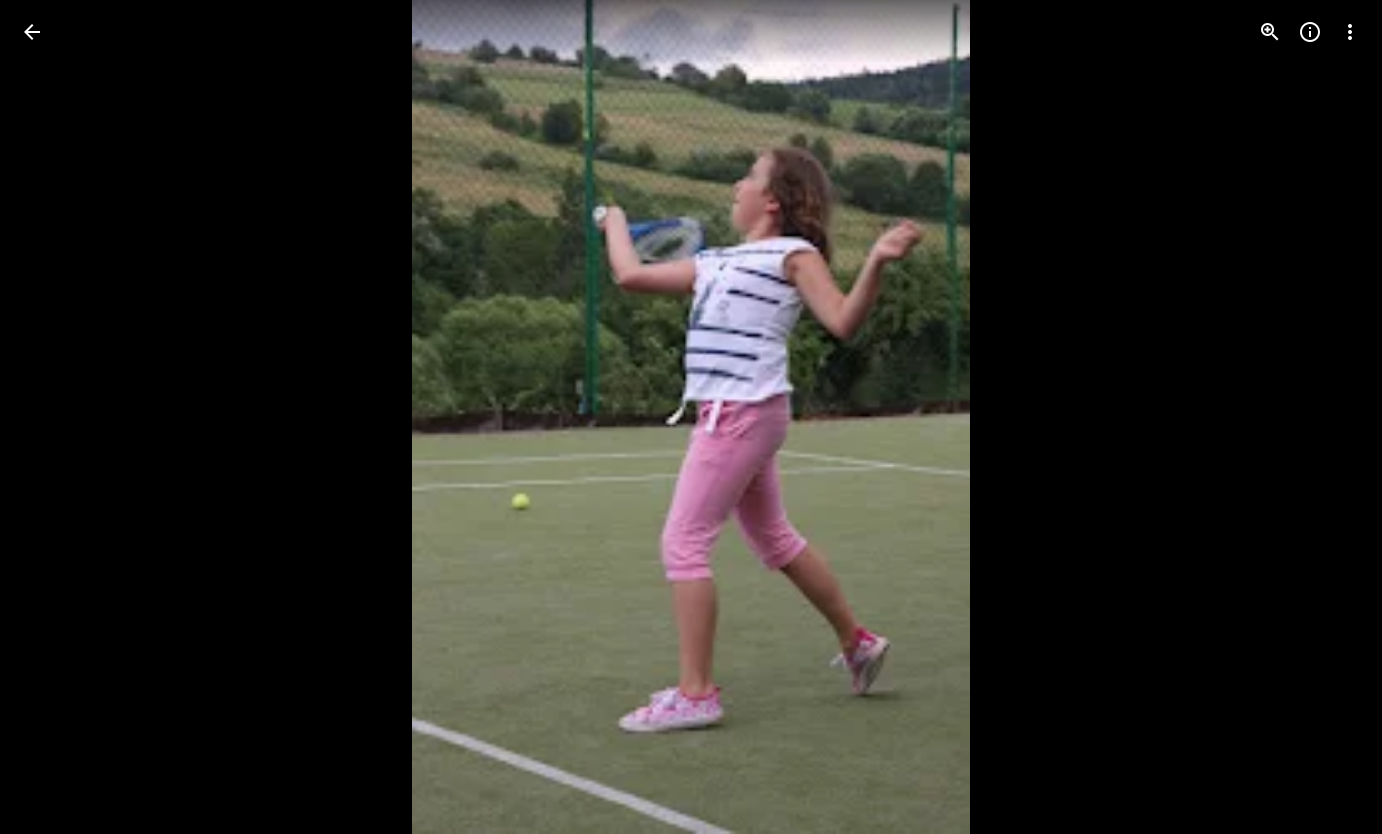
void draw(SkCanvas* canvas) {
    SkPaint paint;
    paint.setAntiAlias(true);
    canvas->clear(0xFF000000);
    canvas->drawImageRect(SkImages::DeferredFromEncodedData(SkData::MakeFromFileName("img5.png")), SkRect::MakeXYWH(412, 0, 558, 834), SkSamplingOptions());
    {
        const SkColor colors[] = {0x99000000, 0x00000000};
        const float stops[] = {0, 1};
        const SkPoint ends[] = {{691, 0}, {691, 64}};
        paint.setShader(SkGradientShader::MakeLinear(ends, colors, stops, 2, SkTileMode::kClamp));
        paint.setAlpha(255);
    }
    canvas->drawRect(SkRect::MakeXYWH(412, 0, 558, 62), paint);
    canvas->drawImageRect(SkImages::DeferredFromEncodedData(SkData::MakeFromFileName("img1.png")), SkRect::MakeXYWH(24, 24, 16, 16), SkSamplingOptions());
    canvas->drawImageRect(SkImages::DeferredFromEncodedData(SkData::MakeFromFileName("img2.png")), SkRect::MakeXYWH(1261, 23, 18, 18), SkSamplingOptions());
    canvas->drawImageRect(SkImages::DeferredFromEncodedData(SkData::MakeFromFileName("img3.png")), SkRect::MakeXYWH(1300, 22, 20, 20), SkSamplingOptions());
    canvas->drawImageRect(SkImages::DeferredFromEncodedData(SkData::MakeFromFileName("img4.png")), SkRect::MakeXYWH(1348, 24, 4, 16), SkSamplingOptions());
}
